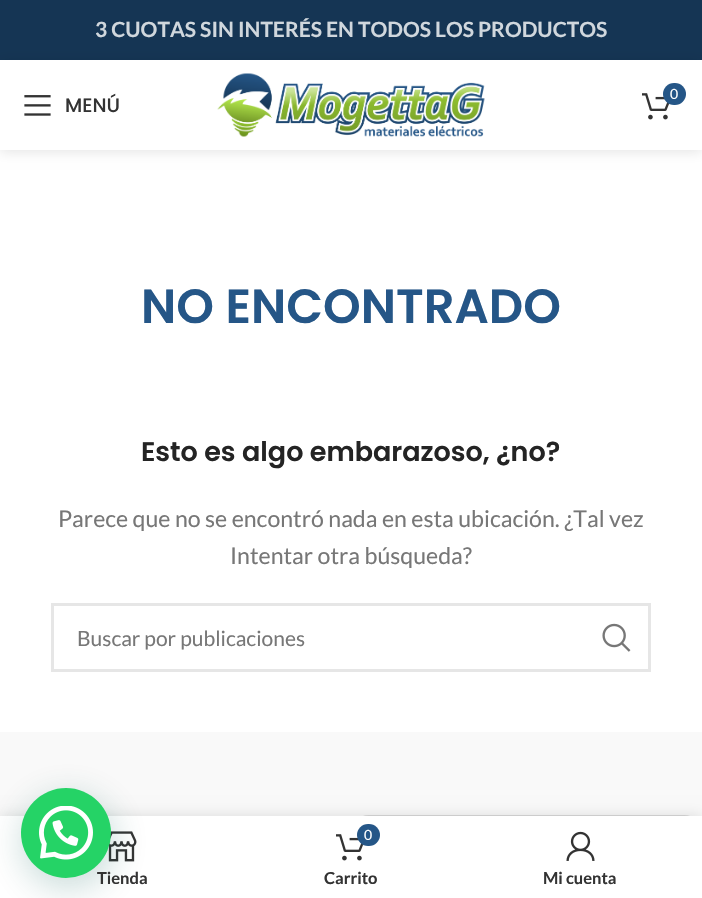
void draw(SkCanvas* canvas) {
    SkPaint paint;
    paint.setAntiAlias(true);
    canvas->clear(0xFFFFFFFF);
    paint.setColor(0xFF153554);
    canvas->drawRect(SkRect::MakeXYWH(0, 0, 702, 60), paint);
    SkFont font1(fontMgr->matchFamilyStyle("Lato", SkFontStyle::Bold()), 21);
    font1.setSubpixel(true);
    paint.setColor(0xFFD0D7DD);
    canvas->drawString("3 CUOTAS SIN INTERÉS EN TODOS LOS PRODUCTOS", 95, 37, font1, paint);
    canvas->save();
    canvas->clipPath(SkPathBuilder(SkPathFillType::kEvenOdd).moveTo(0, 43).lineTo(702, 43).lineTo(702, 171).lineTo(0, 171).close().moveTo(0, 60).lineTo(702, 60).lineTo(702, 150).lineTo(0, 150).close().detach(), true);
    paint.setColor(0x1A000000);
    paint.setMaskFilter(SkMaskFilter::MakeBlur(kNormal_SkBlurStyle, 6));
    canvas->drawRect(SkRect::MakeXYWH(0, 62, 702, 90), paint);
    paint.setMaskFilter(nullptr);
    canvas->restore();
    canvas->drawImageRect(SkImages::DeferredFromEncodedData(SkData::MakeFromFileName("img1.png")), SkRect::MakeXYWH(24, 95, 27, 21), SkSamplingOptions());
    SkFont font2(fontMgr->matchFamilyStyle("Poppins", SkFontStyle(500, SkFontStyle::kNormal_Width, SkFontStyle::kUpright_Slant)), 19.5f);
    font2.setSubpixel(true);
    paint.setColor(0xFF333333);
    canvas->drawString("MENÚ", 65, 112, font2, paint);
    canvas->drawImageRect(SkImages::DeferredFromEncodedData(SkData::MakeFromFileName("img2.png")), SkRect::MakeXYWH(217, 73, 268, 64), SkSamplingOptions());
    canvas->drawImageRect(SkImages::DeferredFromEncodedData(SkData::MakeFromFileName("img3.png")), SkRect::MakeXYWH(642, 93, 28, 27), SkSamplingOptions());
    paint.setColor(0xFF255687);
    canvas->drawRoundRect(SkRect::MakeXYWH(663, 83, 23, 22), 11, 11, paint);
    SkFont font3(fontMgr->matchFamilyStyle("Lato", SkFontStyle::Normal()), 14);
    font3.setSubpixel(true);
    paint.setColor(0xFFFFFFFF);
    canvas->drawString("0", 670, 99, font3, paint);
    SkFont font4(fontMgr->matchFamilyStyle("Poppins", SkFontStyle(600, SkFontStyle::kNormal_Width, SkFontStyle::kUpright_Slant)), 48);
    font4.setSubpixel(true);
    paint.setColor(0xFF255687);
    canvas->drawString("NO ENCONTRADO", 141, 323, font4, paint);
    SkFont font5(fontMgr->matchFamilyStyle("Poppins", SkFontStyle(600, SkFontStyle::kNormal_Width, SkFontStyle::kUpright_Slant)), 27);
    font5.setSubpixel(true);
    paint.setColor(0xFF242424);
    canvas->drawString("Esto es algo embarazoso, ¿no?", 141, 461, font5, paint);
    SkFont font6(fontMgr->matchFamilyStyle("Lato", SkFontStyle::Normal()), 23.1f);
    font6.setSubpixel(true);
    paint.setColor(0xFF777777);
    canvas->drawString("Parece que no se encontró nada en esta ubicación. ¿Tal vez", 58, 527, font6, paint);
    canvas->drawString("Intentar otra búsqueda?", 230, 564, font6, paint);
    paint.setStyle(SkPaint::kStroke_Style);
    paint.setStrokeWidth(3);
    paint.setColor(0xFFE6E6E6);
    canvas->drawRect(SkRect::MakeXYWH(52.5f, 604.5f, 597, 66), paint);
    SkFont font7(fontMgr->matchFamilyStyle("Lato", SkFontStyle::Normal()), 21);
    font7.setSubpixel(true);
    paint.setStyle(SkPaint::kFill_Style);
    paint.setColor(0xFF777777);
    canvas->drawString("Buscar por publicaciones", 77, 646, font7, paint);
    canvas->drawImageRect(SkImages::DeferredFromEncodedData(SkData::MakeFromFileName("img4.png")), SkRect::MakeXYWH(602, 623, 29, 29), SkSamplingOptions());
    paint.setColor(0xFFF9F9F9);
    canvas->drawRect(SkRect::MakeXYWH(0, 732, 702, 84), paint);
    paint.setStyle(SkPaint::kStroke_Style);
    paint.setStrokeWidth(2);
    paint.setColor(0xFFD9D9D9);
    canvas->drawRoundRect(SkRect::MakeXYWH(352, 816, 349, 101), 17, 17, paint);
    paint.setStyle(SkPaint::kFill_Style);
    paint.setColor(0x1F000000);
    paint.setMaskFilter(SkMaskFilter::MakeBlur(kNormal_SkBlurStyle, 7));
    canvas->drawRect(SkRect::MakeXYWH(0, 816, 702, 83), paint);
    paint.setMaskFilter(nullptr);
    paint.setColor(0xFFFFFFFF);
    canvas->drawRect(SkRect::MakeXYWH(0, 816, 702, 82), paint);
    canvas->drawImageRect(SkImages::DeferredFromEncodedData(SkData::MakeFromFileName("img6.png")), SkRect::MakeXYWH(108, 831, 29, 31), SkSamplingOptions());
    paint.setColor(0x3D075E54);
    paint.setMaskFilter(SkMaskFilter::MakeBlur(kNormal_SkBlurStyle, 18));
    canvas->drawRoundRect(SkRect::MakeXYWH(23, 797, 90, 90), 45, 45, paint);
    paint.setMaskFilter(nullptr);
    SkFont font8(fontMgr->matchFamilyStyle("Lato", SkFontStyle::Bold()), 16.5f);
    font8.setSubpixel(true);
    paint.setColor(0xFF333333);
    canvas->drawString("Tienda", 97, 884, font8, paint);
    paint.setColor(0xFF25D366);
    canvas->drawCircle(66, 833, 45, paint);
    canvas->drawImageRect(SkImages::DeferredFromEncodedData(SkData::MakeFromFileName("img5.png")), SkRect::MakeXYWH(39, 806, 54, 54), SkSamplingOptions());
    canvas->drawImageRect(SkImages::DeferredFromEncodedData(SkData::MakeFromFileName("img3.png")), SkRect::MakeXYWH(336, 834, 28, 27), SkSamplingOptions());
    paint.setColor(0xFF255687);
    canvas->drawRoundRect(SkRect::MakeXYWH(357, 824, 23, 22), 11, 11, paint);
    paint.setColor(0xFFFFFFFF);
    canvas->drawString("0", 364, 840, font3, paint);
    paint.setColor(0xFF333333);
    canvas->drawString("Carrito", 324, 884, font8, paint);
    canvas->drawImageRect(SkImages::DeferredFromEncodedData(SkData::MakeFromFileName("img7.png")), SkRect::MakeXYWH(566, 831, 29, 30), SkSamplingOptions());
    canvas->drawString("Mi cuenta", 543, 884, font8, paint);
}
